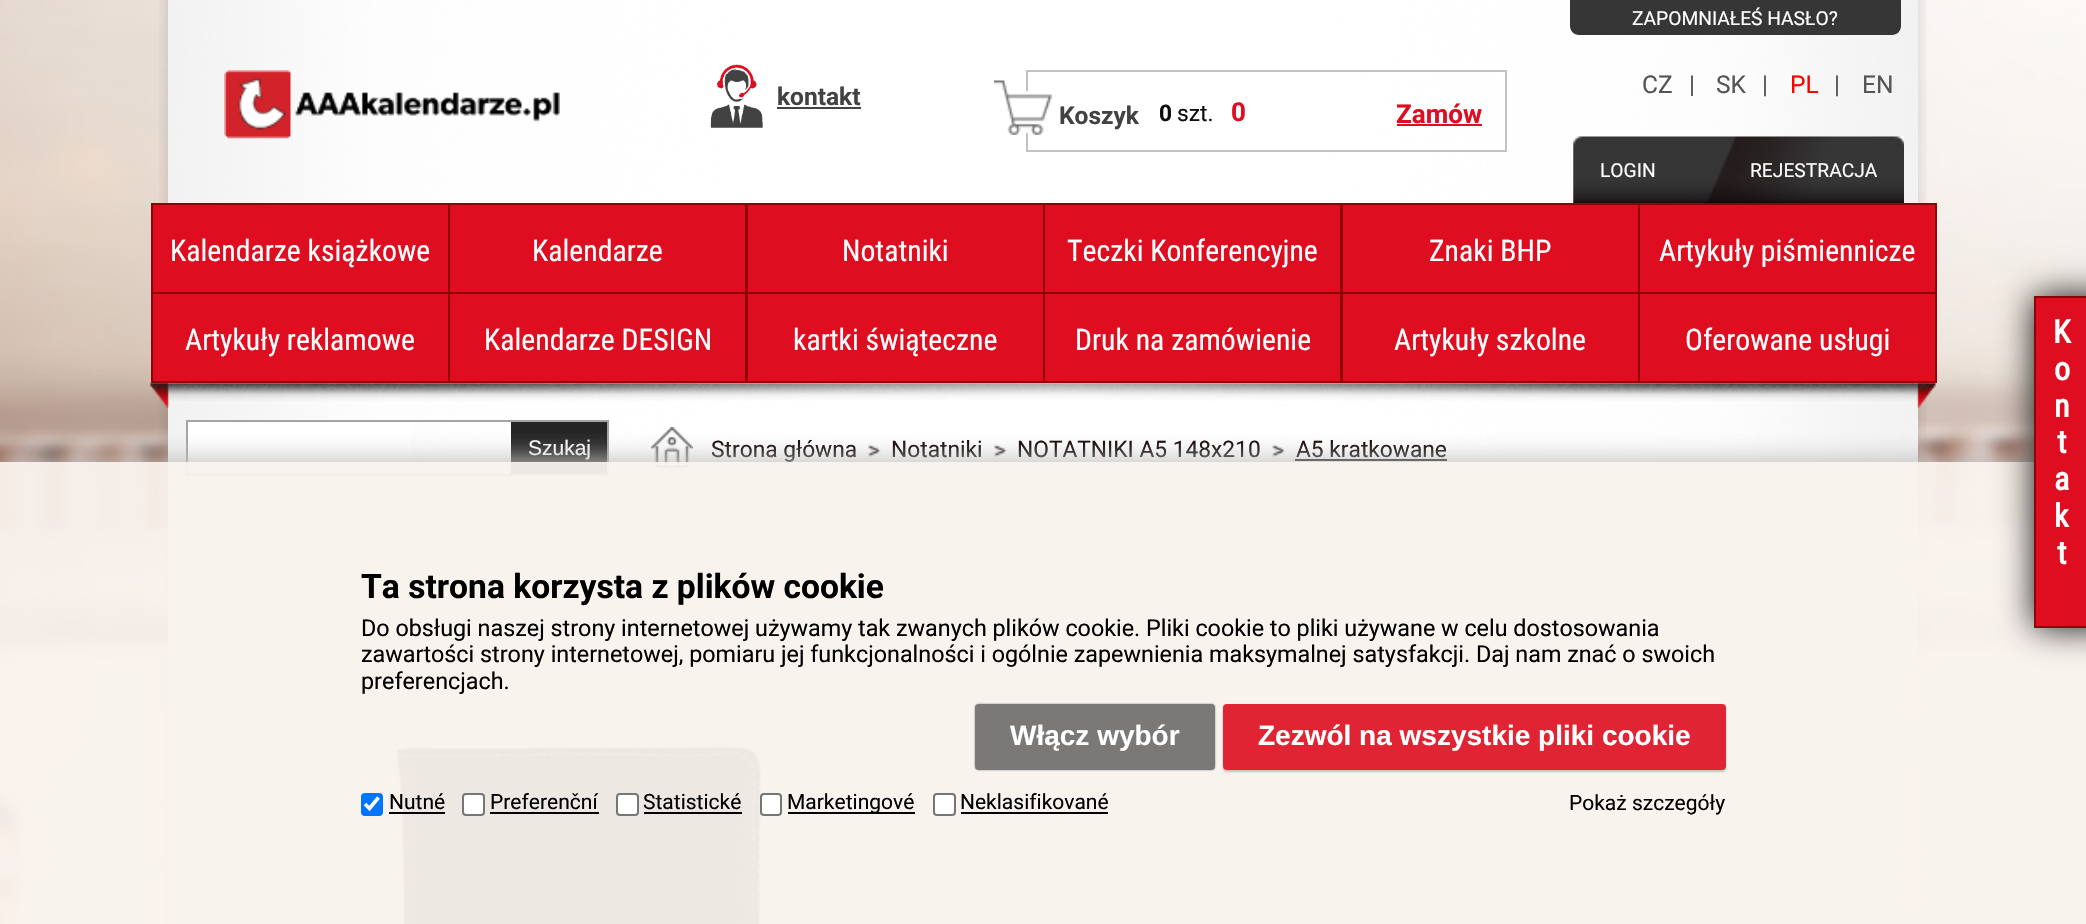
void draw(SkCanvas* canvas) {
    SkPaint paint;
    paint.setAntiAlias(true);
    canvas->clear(0xFFFFFFFF);
    canvas->drawImageRect(SkImages::DeferredFromEncodedData(SkData::MakeFromFileName("img1.png")), SkRect::MakeXYWH(0, 0, 2086, 924), SkSamplingOptions());
    canvas->drawImageRect(SkImages::DeferredFromEncodedData(SkData::MakeFromFileName("img2.png")), SkRect::MakeXYWH(168, 420, 1750, 504), SkSamplingOptions());
    canvas->drawImageRect(SkImages::DeferredFromEncodedData(SkData::MakeFromFileName("img3.png")), SkRect::MakeXYWH(159, 0, 9, 924), SkSamplingOptions());
    canvas->drawImageRect(SkImages::DeferredFromEncodedData(SkData::MakeFromFileName("img4.png")), SkRect::MakeXYWH(168, 0, 1750, 420), SkSamplingOptions());
    paint.setColor(0xFF363636);
    canvas->drawPath(SkPathBuilder().moveTo(1570, 0).lineTo(1901, 0).lineTo(1901, 26).cubicTo(1901, 31, 1897, 35, 1892, 35).lineTo(1579, 35).cubicTo(1574, 35, 1570, 31, 1570, 26).close().detach(), paint);
    SkFont font1(fontMgr->matchFamilyStyle("Roboto", SkFontStyle::Normal()), 19.25f);
    font1.setSubpixel(true);
    paint.setColor(0xFFFFFFFF);
    canvas->drawString("ZAPOMNIAŁEŚ HASŁO?", 1632, 25, font1, paint);
    canvas->drawImageRect(SkImages::DeferredFromEncodedData(SkData::MakeFromFileName("img5.png")), SkRect::MakeXYWH(224, 70, 336, 69), SkSamplingOptions());
    canvas->drawImageRect(SkImages::DeferredFromEncodedData(SkData::MakeFromFileName("img6.png")), SkRect::MakeXYWH(710, 64, 53, 64), SkSamplingOptions());
    SkFont font2(fontMgr->matchFamilyStyle("Roboto", SkFontStyle::Bold()), 24.5f);
    font2.setSubpixel(true);
    paint.setColor(0xFF424242);
    canvas->drawString("kontakt", 777, 105, font2, paint);
    canvas->drawRect(SkRect::MakeXYWH(777, 107, 84, 2), paint);
    SkFont font3(fontMgr->matchFamilyStyle("Roboto", SkFontStyle::Normal()), 24.5f);
    font3.setSubpixel(true);
    paint.setColor(0xFF555555);
    canvas->drawString("CZ", 1642, 93, font3, paint);
    canvas->save();
    canvas->clipRect(SkRect::MakeXYWH(1516, 70, 393, 26));
    canvas->drawString("|", 1689, 93, font3, paint);
    canvas->restore();
    canvas->drawString("SK", 1716, 93, font3, paint);
    canvas->drawString("|", 1762, 93, font3, paint);
    paint.setColor(0xFFFF0000);
    canvas->drawString("PL", 1790, 93, font3, paint);
    paint.setColor(0xFF555555);
    canvas->drawString("|", 1834, 93, font3, paint);
    canvas->drawString("EN", 1862, 93, font3, paint);
    paint.setStyle(SkPaint::kStroke_Style);
    paint.setStrokeWidth(2);
    paint.setColor(0xFFC2C2C2);
    canvas->drawRect(SkRect::MakeXYWH(1027, 71, 479, 80), paint);
    canvas->drawImageRect(SkImages::DeferredFromEncodedData(SkData::MakeFromFileName("img7.png")), SkRect::MakeXYWH(994, 80, 58, 55), SkSamplingOptions());
    paint.setStyle(SkPaint::kFill_Style);
    paint.setColor(0xFF424242);
    canvas->drawString("Koszyk", 1059, 124, font2, paint);
    SkFont font4(fontMgr->matchFamilyStyle("Roboto", SkFontStyle::Bold()), 22.75f);
    font4.setSubpixel(true);
    paint.setColor(0xFF0D0D0D);
    canvas->drawString("0", 1159, 121, font4, paint);
    SkFont font5(fontMgr->matchFamilyStyle("Roboto", SkFontStyle::Normal()), 22.75f);
    font5.setSubpixel(true);
    canvas->drawString("szt.", 1177, 121, font5, paint);
    SkFont font6(fontMgr->matchFamilyStyle("Roboto", SkFontStyle::Bold()), 26);
    font6.setSubpixel(true);
    paint.setColor(0xFFDE0D1F);
    canvas->drawString("0", 1231, 121, font6, paint);
    canvas->drawString("Zamów", 1396, 123, font6, paint);
    canvas->drawRect(SkRect::MakeXYWH(1397, 124, 85, 2), paint);
    canvas->drawImageRect(SkImages::DeferredFromEncodedData(SkData::MakeFromFileName("img8.png")), SkRect::MakeXYWH(1573, 136, 331, 67), SkSamplingOptions());
    paint.setColor(0xFFFFFFFF);
    canvas->drawString("LOGIN", 1600, 177, font1, paint);
    canvas->drawString("REJESTRACJA", 1750, 177, font1, paint);
    canvas->drawImageRect(SkImages::DeferredFromEncodedData(SkData::MakeFromFileName("img15.png")), SkRect::MakeXYWH(1918, 0, 9, 924), SkSamplingOptions());
    canvas->drawImageRect(SkImages::DeferredFromEncodedData(SkData::MakeFromFileName("img9.png")), SkRect::MakeXYWH(150, 383, 1786, 25), SkSamplingOptions());
    paint.setColor(0xFFDE0D1F);
    canvas->drawRect(SkRect::MakeXYWH(152, 204, 297, 89), paint);
    paint.setStyle(SkPaint::kStroke_Style);
    paint.setColor(0xFF8D0306);
    canvas->drawRect(SkRect::MakeXYWH(152, 204, 297, 89), paint);
    SkFont font7(fontMgr->matchFamilyStyle("Roboto Condensed", SkFontStyle::Normal()), 29.75f);
    font7.setSubpixel(true);
    paint.setStyle(SkPaint::kFill_Style);
    paint.setColor(0xFFFFFFFF);
    canvas->drawString("Kalendarze książkowe", 170, 261, font7, paint);
    paint.setColor(0xFFDE0D1F);
    canvas->drawRect(SkRect::MakeXYWH(449, 204, 297, 89), paint);
    paint.setStyle(SkPaint::kStroke_Style);
    paint.setColor(0xFF8D0306);
    canvas->drawRect(SkRect::MakeXYWH(449, 204, 297, 89), paint);
    paint.setStyle(SkPaint::kFill_Style);
    paint.setColor(0xFFFFFFFF);
    canvas->drawString("Kalendarze", 532, 261, font7, paint);
    paint.setColor(0xFFDE0D1F);
    canvas->drawRect(SkRect::MakeXYWH(747, 204, 297, 89), paint);
    paint.setStyle(SkPaint::kStroke_Style);
    paint.setColor(0xFF8D0306);
    canvas->drawRect(SkRect::MakeXYWH(747, 204, 297, 89), paint);
    paint.setStyle(SkPaint::kFill_Style);
    paint.setColor(0xFFFFFFFF);
    canvas->drawString("Notatniki", 842, 261, font7, paint);
    paint.setColor(0xFFDE0D1F);
    canvas->drawRect(SkRect::MakeXYWH(1044, 204, 297, 89), paint);
    paint.setStyle(SkPaint::kStroke_Style);
    paint.setColor(0xFF8D0306);
    canvas->drawRect(SkRect::MakeXYWH(1044, 204, 297, 89), paint);
    paint.setStyle(SkPaint::kFill_Style);
    paint.setColor(0xFFFFFFFF);
    canvas->drawString("Teczki Konferencyjne", 1067, 261, font7, paint);
    paint.setColor(0xFFDE0D1F);
    canvas->drawRect(SkRect::MakeXYWH(1342, 204, 297, 89), paint);
    paint.setStyle(SkPaint::kStroke_Style);
    paint.setColor(0xFF8D0306);
    canvas->drawRect(SkRect::MakeXYWH(1342, 204, 297, 89), paint);
    paint.setStyle(SkPaint::kFill_Style);
    paint.setColor(0xFFFFFFFF);
    canvas->drawString("Znaki BHP", 1429, 261, font7, paint);
    paint.setColor(0xFFDE0D1F);
    canvas->drawRect(SkRect::MakeXYWH(1639, 204, 297, 89), paint);
    paint.setStyle(SkPaint::kStroke_Style);
    paint.setColor(0xFF8D0306);
    canvas->drawRect(SkRect::MakeXYWH(1639, 204, 297, 89), paint);
    paint.setStyle(SkPaint::kFill_Style);
    paint.setColor(0xFFFFFFFF);
    canvas->drawString("Artykuły piśmiennicze", 1659, 261, font7, paint);
    paint.setColor(0xFFDE0D1F);
    canvas->drawRect(SkRect::MakeXYWH(152, 293, 297, 89), paint);
    paint.setStyle(SkPaint::kStroke_Style);
    paint.setColor(0xFF8D0306);
    canvas->drawRect(SkRect::MakeXYWH(152, 293, 297, 89), paint);
    paint.setStyle(SkPaint::kFill_Style);
    paint.setColor(0xFFFFFFFF);
    canvas->drawString("Artykuły reklamowe", 185, 350, font7, paint);
    paint.setColor(0xFFDE0D1F);
    canvas->drawRect(SkRect::MakeXYWH(449, 293, 297, 89), paint);
    paint.setStyle(SkPaint::kStroke_Style);
    paint.setColor(0xFF8D0306);
    canvas->drawRect(SkRect::MakeXYWH(449, 293, 297, 89), paint);
    paint.setStyle(SkPaint::kFill_Style);
    paint.setColor(0xFFFFFFFF);
    canvas->drawString("Kalendarze DESIGN", 484, 350, font7, paint);
    paint.setColor(0xFFDE0D1F);
    canvas->drawRect(SkRect::MakeXYWH(747, 293, 297, 89), paint);
    paint.setStyle(SkPaint::kStroke_Style);
    paint.setColor(0xFF8D0306);
    canvas->drawRect(SkRect::MakeXYWH(747, 293, 297, 89), paint);
    paint.setStyle(SkPaint::kFill_Style);
    paint.setColor(0xFFFFFFFF);
    canvas->drawString("kartki świąteczne", 793, 350, font7, paint);
    paint.setColor(0xFFDE0D1F);
    canvas->drawRect(SkRect::MakeXYWH(1044, 293, 297, 89), paint);
    paint.setStyle(SkPaint::kStroke_Style);
    paint.setColor(0xFF8D0306);
    canvas->drawRect(SkRect::MakeXYWH(1044, 293, 297, 89), paint);
    paint.setStyle(SkPaint::kFill_Style);
    paint.setColor(0xFFFFFFFF);
    canvas->drawString("Druk na zamówienie", 1075, 350, font7, paint);
    paint.setColor(0xFFDE0D1F);
    canvas->drawRect(SkRect::MakeXYWH(1342, 293, 297, 89), paint);
    paint.setStyle(SkPaint::kStroke_Style);
    paint.setColor(0xFF8D0306);
    canvas->drawRect(SkRect::MakeXYWH(1342, 293, 297, 89), paint);
    paint.setStyle(SkPaint::kFill_Style);
    paint.setColor(0xFFFFFFFF);
    canvas->drawString("Artykuły szkolne", 1394, 350, font7, paint);
    paint.setColor(0xFFDE0D1F);
    canvas->drawRect(SkRect::MakeXYWH(1639, 293, 297, 89), paint);
    paint.setStyle(SkPaint::kStroke_Style);
    paint.setColor(0xFF8D0306);
    canvas->drawRect(SkRect::MakeXYWH(1639, 293, 297, 89), paint);
    paint.setStyle(SkPaint::kFill_Style);
    paint.setColor(0xFFFFFFFF);
    canvas->drawString("Oferowane usługi", 1685, 350, font7, paint);
    canvas->drawRect(SkRect::MakeXYWH(188, 422, 223, 52), paint);
    paint.setStyle(SkPaint::kStroke_Style);
    paint.setColor(0xFFA4A4A4);
    canvas->drawRect(SkRect::MakeXYWH(187, 421, 421, 54), paint);
    paint.setStyle(SkPaint::kFill_Style);
    paint.setColor(0xFF252525);
    canvas->drawRect(SkRect::MakeXYWH(511, 422, 96, 52), paint);
    SkFont font8(fontMgr->matchFamilyStyle("Liberation Sans", SkFontStyle::Normal()), 21);
    font8.setSubpixel(true);
    paint.setColor(0xFFFFFFFF);
    canvas->drawString("Szukaj", 528, 455, font8, paint);
    canvas->drawImageRect(SkImages::DeferredFromEncodedData(SkData::MakeFromFileName("img10.png")), SkRect::MakeXYWH(651, 427, 42, 42), SkSamplingOptions());
    paint.setColor(0xFF0E0302);
    canvas->drawString("Strona główna", 711, 457, font5, paint);
    canvas->drawImageRect(SkImages::DeferredFromEncodedData(SkData::MakeFromFileName("img11.png")), SkRect::MakeXYWH(868, 444, 13, 13), SkSamplingOptions());
    canvas->drawString("Notatniki", 891, 457, font5, paint);
    canvas->drawImageRect(SkImages::DeferredFromEncodedData(SkData::MakeFromFileName("img12.png")), SkRect::MakeXYWH(994, 444, 13, 13), SkSamplingOptions());
    canvas->drawString("NOTATNIKI A5 148x210", 1017, 457, font5, paint);
    canvas->drawImageRect(SkImages::DeferredFromEncodedData(SkData::MakeFromFileName("img13.png")), SkRect::MakeXYWH(1272, 444, 13, 13), SkSamplingOptions());
    canvas->drawString("A5 kratkowane", 1296, 457, font5, paint);
    canvas->drawRect(SkRect::MakeXYWH(1295, 459, 152, 2), paint);
    canvas->drawImageRect(SkImages::DeferredFromEncodedData(SkData::MakeFromFileName("img14.png")), SkRect::MakeXYWH(306, 744, 462, 180), SkSamplingOptions());
    canvas->save();
    canvas->clipRect(SkRect::MakeXYWH(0, 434, 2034, 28));
    paint.setColor(0xFFC0C0C0);
    paint.setMaskFilter(SkMaskFilter::MakeBlur(kNormal_SkBlurStyle, 12));
    canvas->drawRect(SkRect::MakeXYWH(-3, 459, 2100, 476), paint);
    paint.setMaskFilter(nullptr);
    canvas->restore();
    paint.setColor(0xF2F9F2ED);
    canvas->drawRect(SkRect::MakeXYWH(0, 462, 2086, 462), paint);
    paint.setColor(0xFF111111);
    paint.setMaskFilter(SkMaskFilter::MakeBlur(kNormal_SkBlurStyle, 17.5f));
    canvas->drawRect(SkRect::MakeXYWH(2034, 296, 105, 332), paint);
    paint.setMaskFilter(nullptr);
    paint.setColor(0xFFDE0D1F);
    canvas->drawRect(SkRect::MakeXYWH(2035, 297, 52, 330), paint);
    paint.setStyle(SkPaint::kStroke_Style);
    paint.setColor(0xFF8D0306);
    canvas->drawRect(SkRect::MakeXYWH(2035, 297, 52, 330), paint);
    SkFont font9(fontMgr->matchFamilyStyle("Roboto Condensed", SkFontStyle::Bold()), 32);
    font9.setSubpixel(true);
    paint.setStyle(SkPaint::kFill_Style);
    paint.setColor(0xFFFFFFFF);
    canvas->drawString("K", 2053, 343, font9, paint);
    canvas->drawString("o", 2054, 380, font9, paint);
    canvas->drawString("n", 2054, 417, font9, paint);
    canvas->drawString("t", 2057, 453, font9, paint);
    canvas->drawString("a", 2054, 490, font9, paint);
    canvas->drawString("k", 2054, 527, font9, paint);
    canvas->drawString("t", 2057, 564, font9, paint);
    SkFont font10(fontMgr->matchFamilyStyle("Roboto", SkFontStyle::Bold()), 33.6f);
    font10.setSubpixel(true);
    paint.setColor(0xFF000000);
    canvas->drawString("Ta strona korzysta z plików cookie", 361, 598, font10, paint);
    SkFont font11(fontMgr->matchFamilyStyle("Roboto", SkFontStyle::Normal()), 23.33f);
    font11.setSubpixel(true);
    canvas->drawString("Do obsługi naszej strony internetowej używamy tak zwanych plików cookie. Pliki cookie to pliki używane w celu dostosowania", 361, 636, font11, paint);
    canvas->drawString("zawartości strony internetowej, pomiaru jej funkcjonalności i ogólnie zapewnienia maksymalnej satysfakcji. Daj nam znać o swoich", 361, 662, font11, paint);
    canvas->drawString("preferencjach.", 361, 689, font11, paint);
    canvas->save();
    canvas->clipPath(SkPathBuilder(SkPathFillType::kEvenOdd).moveTo(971, 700).lineTo(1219, 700).lineTo(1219, 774).lineTo(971, 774).close().moveTo(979, 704).lineTo(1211, 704).cubicTo(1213, 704, 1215, 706, 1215, 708).lineTo(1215, 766).cubicTo(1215, 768, 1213, 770, 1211, 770).lineTo(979, 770).cubicTo(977, 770, 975, 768, 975, 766).lineTo(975, 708).cubicTo(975, 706, 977, 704, 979, 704).close().detach(), true);
    paint.setColor(0xCC5A5A5A);
    paint.setMaskFilter(SkMaskFilter::MakeBlur(kNormal_SkBlurStyle, 1));
    canvas->drawRoundRect(SkRect::MakeXYWH(975, 704, 240, 66), 4, 4, paint);
    paint.setMaskFilter(nullptr);
    canvas->restore();
    canvas->drawRoundRect(SkRect::MakeXYWH(975, 704, 240, 66), 4, 4, paint);
    SkFont font12(fontMgr->matchFamilyStyle("Liberation Sans", SkFontStyle::Bold()), 28);
    font12.setSubpixel(true);
    paint.setColor(0xFFFFFFFF);
    canvas->drawString("Włącz wybór", 1010, 745, font12, paint);
    canvas->save();
    canvas->clipPath(SkPathBuilder(SkPathFillType::kEvenOdd).moveTo(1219, 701).lineTo(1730, 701).lineTo(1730, 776).lineTo(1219, 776).close().moveTo(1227, 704).lineTo(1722, 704).cubicTo(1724, 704, 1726, 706, 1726, 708).lineTo(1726, 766).cubicTo(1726, 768, 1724, 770, 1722, 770).lineTo(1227, 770).cubicTo(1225, 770, 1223, 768, 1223, 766).lineTo(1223, 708).cubicTo(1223, 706, 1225, 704, 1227, 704).close().detach(), true);
    paint.setColor(0x33000000);
    paint.setMaskFilter(SkMaskFilter::MakeBlur(kNormal_SkBlurStyle, 1));
    canvas->drawRoundRect(SkRect::MakeXYWH(1223, 705, 503, 67), 4, 4, paint);
    paint.setMaskFilter(nullptr);
    canvas->restore();
    paint.setColor(0xE6DE0D1F);
    canvas->drawRoundRect(SkRect::MakeXYWH(1223, 704, 503, 66), 4, 4, paint);
    paint.setColor(0xFFFFFFFF);
    canvas->drawString("Zezwól na wszystkie pliki cookie", 1258, 745, font12, paint);
    paint.setColor(0xFF0075FF);
    canvas->drawRoundRect(SkRect::MakeXYWH(361, 793, 22, 23), 4, 4, paint);
    paint.setStyle(SkPaint::kStroke_Style);
    paint.setStrokeWidth(3.6f);
    paint.setColor(0xFFFFFFFF);
    canvas->drawPath(SkPathBuilder().moveTo(365, 804).lineTo(369.5f, 808.5f).lineTo(378.5f, 797.5f).detach(), paint);
    SkFont font13(fontMgr->matchFamilyStyle("Roboto", SkFontStyle::Normal()), 21);
    font13.setSubpixel(true);
    paint.setStyle(SkPaint::kFill_Style);
    paint.setColor(0xFF000000);
    canvas->drawString("Nutné", 389, 809, font13, paint);
    canvas->drawRect(SkRect::MakeXYWH(389, 812, 56, 2), paint);
    paint.setColor(0xFFFFFFFF);
    canvas->drawRoundRect(SkRect::MakeXYWH(463, 794, 21, 21), 3, 3, paint);
    paint.setStyle(SkPaint::kStroke_Style);
    paint.setStrokeWidth(2);
    paint.setColor(0xFF767676);
    canvas->drawRoundRect(SkRect::MakeXYWH(463, 794, 21, 21), 3, 3, paint);
    paint.setStyle(SkPaint::kFill_Style);
    paint.setColor(0xFF000000);
    canvas->drawString("Preferenční", 490, 809, font13, paint);
    canvas->drawRect(SkRect::MakeXYWH(490, 812, 109, 2), paint);
    paint.setColor(0xFFFFFFFF);
    canvas->drawRoundRect(SkRect::MakeXYWH(617, 794, 21, 21), 3, 3, paint);
    paint.setStyle(SkPaint::kStroke_Style);
    paint.setColor(0xFF767676);
    canvas->drawRoundRect(SkRect::MakeXYWH(617, 794, 21, 21), 3, 3, paint);
    paint.setStyle(SkPaint::kFill_Style);
    paint.setColor(0xFF000000);
    canvas->drawString("Statistické", 643, 809, font13, paint);
    canvas->drawRect(SkRect::MakeXYWH(644, 812, 98, 2), paint);
    paint.setColor(0xFFFFFFFF);
    canvas->drawRoundRect(SkRect::MakeXYWH(761, 794, 20, 21), 3, 3, paint);
    paint.setStyle(SkPaint::kStroke_Style);
    paint.setColor(0xFF767676);
    canvas->drawRoundRect(SkRect::MakeXYWH(761, 794, 20, 21), 3, 3, paint);
    paint.setStyle(SkPaint::kFill_Style);
    paint.setColor(0xFF000000);
    canvas->drawRect(SkRect::MakeXYWH(788, 812, 127, 2), paint);
    canvas->drawString("Marketingové", 787, 809, font13, paint);
    paint.setColor(0xFFFFFFFF);
    canvas->drawRoundRect(SkRect::MakeXYWH(934, 794, 21, 21), 3, 3, paint);
    paint.setStyle(SkPaint::kStroke_Style);
    paint.setColor(0xFF767676);
    canvas->drawRoundRect(SkRect::MakeXYWH(934, 794, 21, 21), 3, 3, paint);
    paint.setStyle(SkPaint::kFill_Style);
    paint.setColor(0xFF000000);
    canvas->drawString("Neklasifikované", 960, 809, font13, paint);
    canvas->drawRect(SkRect::MakeXYWH(961, 812, 147, 2), paint);
    canvas->drawString("Pokaż szczegóły", 1569, 810, font13, paint);
}
